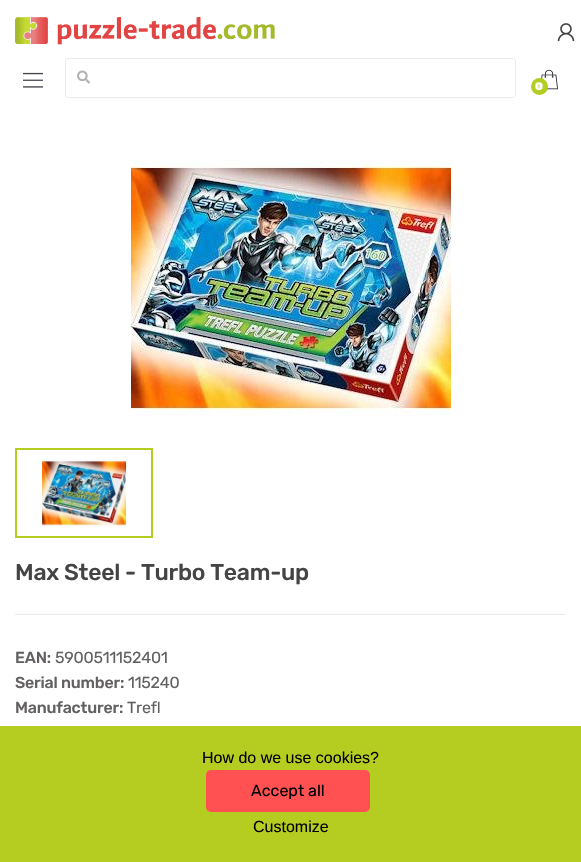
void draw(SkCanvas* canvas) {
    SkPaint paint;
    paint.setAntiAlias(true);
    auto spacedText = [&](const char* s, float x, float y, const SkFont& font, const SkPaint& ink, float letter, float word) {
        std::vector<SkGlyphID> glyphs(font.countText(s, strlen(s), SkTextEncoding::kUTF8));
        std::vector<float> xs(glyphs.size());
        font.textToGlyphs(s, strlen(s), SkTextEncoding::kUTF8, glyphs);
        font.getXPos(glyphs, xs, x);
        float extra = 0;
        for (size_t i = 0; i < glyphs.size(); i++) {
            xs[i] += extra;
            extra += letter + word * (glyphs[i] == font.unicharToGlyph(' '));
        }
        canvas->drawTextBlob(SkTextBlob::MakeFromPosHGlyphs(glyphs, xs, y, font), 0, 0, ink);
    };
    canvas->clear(0xFFFFFFFF);
    canvas->drawImageRect(SkImages::DeferredFromEncodedData(SkData::MakeFromFileName("img1.png")), SkRect::MakeXYWH(15, 17, 260, 28), SkSamplingOptions());
    canvas->drawImageRect(SkImages::DeferredFromEncodedData(SkData::MakeFromFileName("img2.png")), SkRect::MakeXYWH(557, 23, 18, 19), SkSamplingOptions());
    canvas->drawImageRect(SkImages::DeferredFromEncodedData(SkData::MakeFromFileName("img3.png")), SkRect::MakeXYWH(23, 72, 20, 16), SkSamplingOptions());
    paint.setStyle(SkPaint::kStroke_Style);
    paint.setStrokeWidth(1);
    paint.setColor(0xFFEBEBEB);
    canvas->drawRoundRect(SkRect::MakeXYWH(65.5f, 58.5f, 450, 39), 2.5f, 2.5f, paint);
    canvas->drawImageRect(SkImages::DeferredFromEncodedData(SkData::MakeFromFileName("img4.png")), SkRect::MakeXYWH(77, 70, 13, 14), SkSamplingOptions());
    canvas->drawImageRect(SkImages::DeferredFromEncodedData(SkData::MakeFromFileName("img5.png")), SkRect::MakeXYWH(541, 69, 17, 21), SkSamplingOptions());
    paint.setStyle(SkPaint::kFill_Style);
    paint.setColor(0xFFB5CC21);
    canvas->drawCircle(539.5f, 86.5f, 8.5f, paint);
    SkFont font1(fontMgr->matchFamilyStyle("Rubik", SkFontStyle(900, SkFontStyle::kNormal_Width, SkFontStyle::kUpright_Slant)), 11);
    font1.setSubpixel(true);
    paint.setColor(0xFFFFFFFF);
    canvas->drawString("0", 535, 90, font1, paint);
    canvas->drawImageRect(SkImages::DeferredFromEncodedData(SkData::MakeFromFileName("img6.png")), SkRect::MakeXYWH(131, 160, 320, 256), SkSamplingOptions());
    paint.setStyle(SkPaint::kStroke_Style);
    paint.setStrokeWidth(2);
    paint.setColor(0xFFB5CC21);
    canvas->drawRect(SkRect::MakeXYWH(16, 449, 136, 88), paint);
    canvas->drawImageRect(SkImages::DeferredFromEncodedData(SkData::MakeFromFileName("img7.png")), SkRect::MakeXYWH(42, 458, 85, 69), SkSamplingOptions());
    paint.setStyle(SkPaint::kFill_Style);
    paint.setColor(0xFFEBEBEB);
    canvas->drawRect(SkRect::MakeXYWH(15, 614, 551, 1), paint);
    SkFont font2(fontMgr->matchFamilyStyle("Rubik", SkFontStyle(500, SkFontStyle::kNormal_Width, SkFontStyle::kUpright_Slant)), 23);
    font2.setSubpixel(true);
    paint.setColor(0xFF444444);
    spacedText("Max Steel - Turbo Team-up", 15, 580, font2, paint, -0.25f, 0);
    SkFont font3(fontMgr->matchFamilyStyle("Rubik", SkFontStyle(500, SkFontStyle::kNormal_Width, SkFontStyle::kUpright_Slant)), 16);
    font3.setSubpixel(true);
    paint.setColor(0xFF626060);
    spacedText("EAN:", 15, 663, font3, paint, -0.2f, 0);
    SkFont font4(fontMgr->matchFamilyStyle("Rubik", SkFontStyle::Normal()), 16);
    font4.setSubpixel(true);
    spacedText("5900511152401", 55, 663, font4, paint, -0.2f, 0);
    spacedText("Serial number:", 15, 688, font3, paint, -0.2f, 0);
    spacedText("115240", 128, 688, font4, paint, -0.2f, 0);
    spacedText("Manufacturer:", 15, 713, font3, paint, -0.2f, 0);
    spacedText("Trefl", 127, 713, font4, paint, -0.2f, 0);
    paint.setColor(0xFFB5CC21);
    canvas->drawRect(SkRect::MakeXYWH(0, 726, 581, 136), paint);
    SkFont font5(fontMgr->matchFamilyStyle("Liberation Sans", SkFontStyle::Normal()), 16);
    font5.setSubpixel(true);
    paint.setColor(0xFF000000);
    canvas->drawString("How do we use cookies?", 202, 763, font5, paint);
    paint.setColor(0xFFFF5151);
    canvas->drawRoundRect(SkRect::MakeXYWH(206, 770, 164, 42), 5, 5, paint);
    paint.setColor(0xFF000000);
    canvas->drawString("Accept all", 251, 796, font4, paint);
    canvas->drawString("Customize", 253, 832, font5, paint);
}
